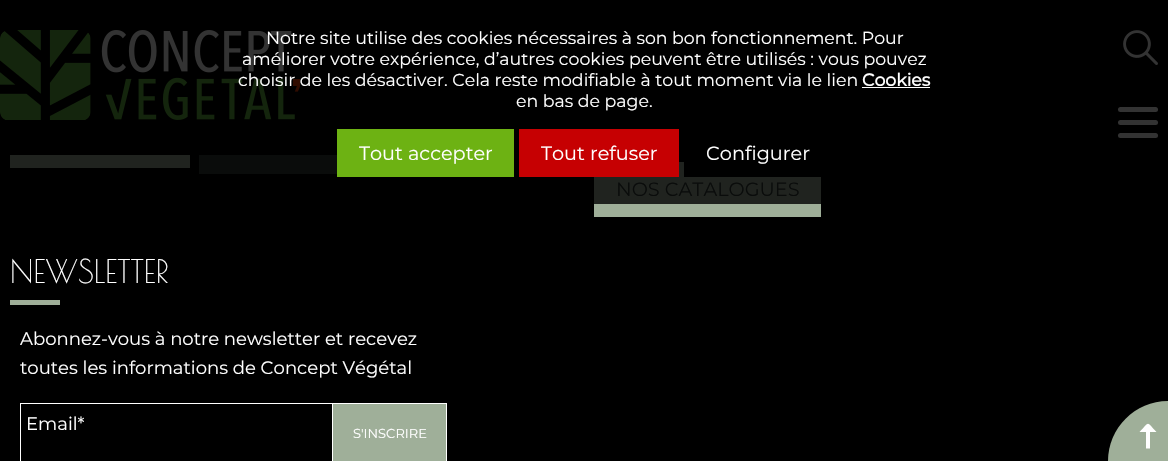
void draw(SkCanvas* canvas) {
    SkPaint paint;
    paint.setAntiAlias(true);
    canvas->clear(0xFF000000);
    canvas->drawImageRect(SkImages::DeferredFromEncodedData(SkData::MakeFromFileName("img1.png")), SkRect::MakeXYWH(0, 30, 300, 90), SkSamplingOptions());
    canvas->drawImageRect(SkImages::DeferredFromEncodedData(SkData::MakeFromFileName("img2.png")), SkRect::MakeXYWH(1123, 30, 35, 35), SkSamplingOptions());
    paint.setColor(0xFF333333);
    canvas->drawRoundRect(SkRect::MakeXYWH(1118, 107, 40, 5), 2.5f, 2.5f, paint);
    canvas->drawRoundRect(SkRect::MakeXYWH(1118, 120, 40, 5), 2.5f, 2.5f, paint);
    canvas->drawRoundRect(SkRect::MakeXYWH(1118, 133, 40, 5), 2.5f, 2.5f, paint);
    SkFont font1(fontMgr->matchFamilyStyle("Montserrat", SkFontStyle::Normal()), 17.35f);
    font1.setSubpixel(true);
    paint.setColor(0xFFFFFFFF);
    canvas->drawString("Notre site utilise des cookies nécessaires à son bon fonctionnement. Pour", 266, 44, font1, paint);
    canvas->drawString("améliorer votre expérience, d’autres cookies peuvent être utilisés : vous pouvez", 242, 65, font1, paint);
    canvas->drawString("choisir de les désactiver. Cela reste modifiable à tout moment via le lien", 238, 86, font1, paint);
    SkFont font2(fontMgr->matchFamilyStyle("Montserrat", SkFontStyle::Bold()), 17.35f);
    font2.setSubpixel(true);
    canvas->drawString("Cookies", 862, 86, font2, paint);
    canvas->drawRect(SkRect::MakeXYWH(862, 87, 68, 1), paint);
    canvas->drawString("en bas de page.", 516, 107, font1, paint);
    paint.setColor(0xFF6DB213);
    canvas->drawRect(SkRect::MakeXYWH(337, 129, 177, 48), paint);
    SkFont font3(fontMgr->matchFamilyStyle("Montserrat", SkFontStyle::Normal()), 19.25f);
    font3.setSubpixel(true);
    paint.setColor(0xFFFFFFFF);
    canvas->drawString("Tout accepter", 359, 160, font3, paint);
    paint.setColor(0xFF20231F);
    canvas->drawRect(SkRect::MakeXYWH(594, 162, 227, 42), paint);
    paint.setColor(0xFFC60002);
    canvas->drawRect(SkRect::MakeXYWH(519, 129, 160, 48), paint);
    paint.setColor(0xFFFFFFFF);
    canvas->drawString("Tout refuser", 541, 160, font3, paint);
    paint.setColor(0xFF000000);
    canvas->drawRect(SkRect::MakeXYWH(684, 162, 137, 15), paint);
    paint.setColor(0xFFFFFFFF);
    canvas->drawString("Configurer", 706, 160, font3, paint);
    paint.setColor(0xFF20231F);
    canvas->drawRect(SkRect::MakeXYWH(10, 155, 180, 13), paint);
    paint.setColor(0xFF0A0C0B);
    canvas->drawRect(SkRect::MakeXYWH(199, 155, 138, 19), paint);
    paint.setColor(0xFF9FAF99);
    canvas->drawRect(SkRect::MakeXYWH(594, 204, 227, 13), paint);
    paint.setColor(0xFF0A0C0B);
    canvas->drawString("NOS CATALOGUES", 616, 196, font3, paint);
    SkFont font4(fontMgr->matchFamilyStyle("Poiret One", SkFontStyle::Normal()), 32);
    font4.setSubpixel(true);
    paint.setColor(0xFFFFFFFF);
    canvas->drawString("NEWSLETTER", 10, 283, font4, paint);
    paint.setColor(0xFF9FAF99);
    canvas->drawRect(SkRect::MakeXYWH(10, 300, 50, 5), paint);
    SkFont font5(fontMgr->matchFamilyStyle("Montserrat", SkFontStyle::Normal()), 18.05f);
    font5.setSubpixel(true);
    paint.setColor(0xFFFFFFFF);
    canvas->drawString("Abonnez-vous à notre newsletter et recevez", 20, 345, font5, paint);
    canvas->drawString("toutes les informations de Concept Végétal", 20, 374, font5, paint);
    paint.setStyle(SkPaint::kStroke_Style);
    paint.setStrokeWidth(1);
    canvas->drawRect(SkRect::MakeXYWH(20.5f, 403.5f, 426, 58), paint);
    paint.setStyle(SkPaint::kFill_Style);
    canvas->drawString("Email*", 26, 430, font5, paint);
    paint.setColor(0xFF9FAF99);
    canvas->drawRect(SkRect::MakeXYWH(333, 404, 113, 57), paint);
    paint.setColor(0xFFFFFFFF);
    canvas->drawRect(SkRect::MakeXYWH(332, 404, 1, 57), paint);
    SkFont font6(fontMgr->matchFamilyStyle("Montserrat", SkFontStyle::Normal()), 13);
    font6.setSubpixel(true);
    canvas->drawString("S'INSCRIRE", 353, 438, font6, paint);
    paint.setColor(0xFF9FAF99);
    canvas->drawPath(SkPathBuilder().moveTo(1168, 401).lineTo(1168, 461).lineTo(1108, 461).cubicTo(1108, 428, 1135, 401, 1168, 401).close().detach(), paint);
    paint.setColor(0xFFFFFFFF);
    canvas->drawPath(SkPathBuilder().moveTo(1139.5f, 432).cubicTo(1150, 421, 1146, 421, 1156.5f, 432).lineTo(1150, 432).lineTo(1150, 448.5f).lineTo(1146, 448.5f).lineTo(1146, 432).close().detach(), paint);
}
